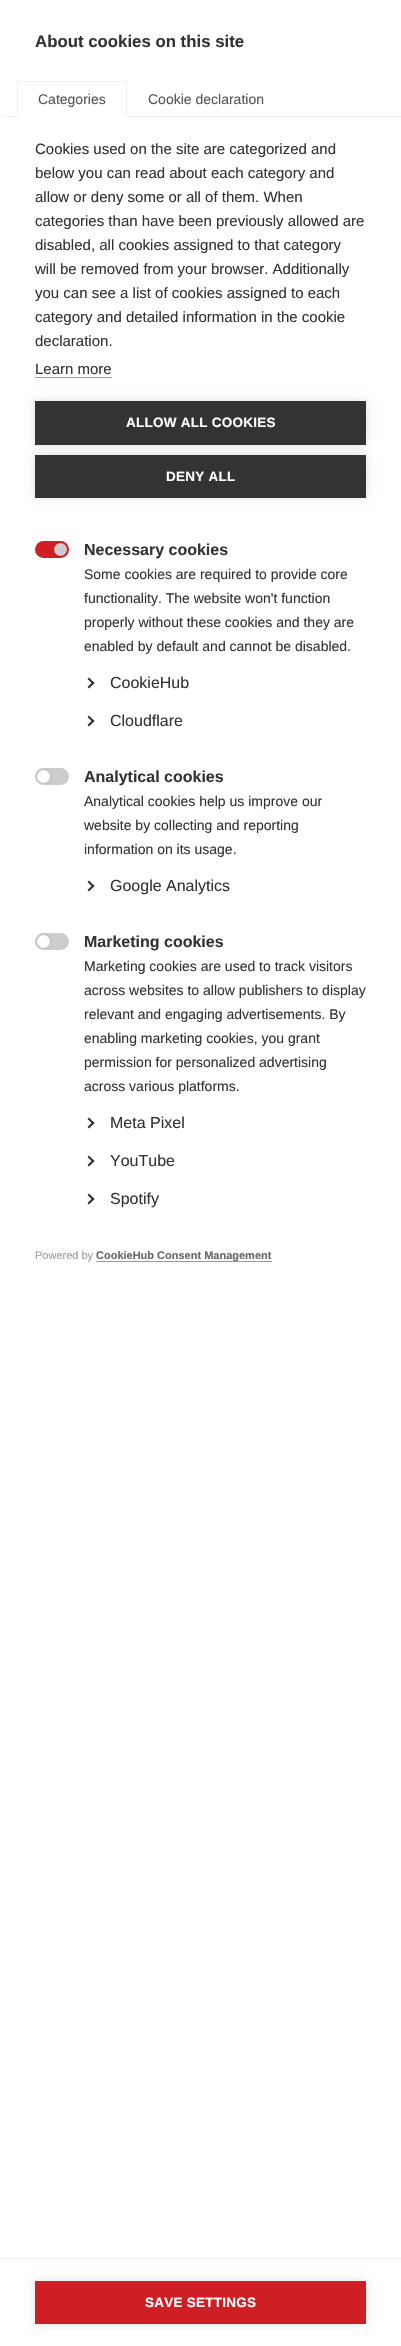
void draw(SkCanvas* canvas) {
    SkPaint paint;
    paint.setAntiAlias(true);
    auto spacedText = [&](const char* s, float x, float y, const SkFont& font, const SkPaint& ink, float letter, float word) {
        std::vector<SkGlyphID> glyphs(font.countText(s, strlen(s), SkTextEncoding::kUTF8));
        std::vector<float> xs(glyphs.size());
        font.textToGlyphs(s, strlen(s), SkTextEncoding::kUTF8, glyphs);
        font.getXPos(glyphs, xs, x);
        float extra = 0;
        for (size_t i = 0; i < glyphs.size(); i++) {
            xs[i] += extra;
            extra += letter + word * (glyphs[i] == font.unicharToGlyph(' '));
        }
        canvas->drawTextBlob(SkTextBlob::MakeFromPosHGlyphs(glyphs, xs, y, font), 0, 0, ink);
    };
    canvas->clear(0xFFFFFFFF);
    SkFont font1(fontMgr->matchFamilyStyle("Liberation Sans", SkFontStyle::Bold()), 16.8f);
    font1.setSubpixel(true);
    paint.setColor(0xFF333333);
    canvas->drawString("About cookies on this site", 35, 47, font1, paint);
    paint.setColor(0xFFF1F1F1);
    canvas->drawRect(SkRect::MakeXYWH(2, 116, 399, 1), paint);
    paint.setColor(0xFFFFFFFF);
    canvas->drawRect(SkRect::MakeXYWH(17, 116, 110, 1), paint);
    paint.setColor(0xFFF1F1F1);
    canvas->drawPath(SkPathBuilder().moveTo(17, 81).lineTo(127, 81).lineTo(126, 82).lineTo(18, 82).close().detach(), paint);
    paint.setColor(0x1A707070);
    canvas->drawPath(SkPathBuilder().moveTo(127, 81).lineTo(127, 117).lineTo(126, 116).lineTo(126, 82).close().detach(), paint);
    paint.setColor(0xFFFFFFFF);
    canvas->drawPath(SkPathBuilder().moveTo(127, 117).lineTo(17, 117).lineTo(18, 116).lineTo(126, 116).close().detach(), paint);
    paint.setColor(0x1A707070);
    canvas->drawPath(SkPathBuilder().moveTo(17, 117).lineTo(17, 81).lineTo(18, 82).lineTo(18, 116).close().detach(), paint);
    SkFont font2(fontMgr->matchFamilyStyle("Liberation Sans", SkFontStyle::Normal()), 14);
    font2.setSubpixel(true);
    paint.setColor(0xFF555555);
    canvas->drawString("Categories", 38, 104, font2, paint);
    canvas->drawString("Cookie declaration", 148, 104, font2, paint);
    SkFont font3(fontMgr->matchFamilyStyle("Liberation Sans", SkFontStyle::Normal()), 15);
    font3.setSubpixel(true);
    paint.setColor(0xFF333333);
    canvas->drawString("Cookies used on the site are categorized and", 35, 154, font3, paint);
    canvas->drawString("below you can read about each category and", 35, 178, font3, paint);
    canvas->drawString("allow or deny some or all of them. When", 35, 202, font3, paint);
    canvas->drawString("categories than have been previously allowed are", 35, 226, font3, paint);
    canvas->drawString("disabled, all cookies assigned to that category", 35, 250, font3, paint);
    canvas->drawString("will be removed from your browser. Additionally", 35, 274, font3, paint);
    canvas->drawString("you can see a list of cookies assigned to each", 35, 298, font3, paint);
    canvas->drawString("category and detailed information in the cookie", 35, 322, font3, paint);
    canvas->drawString("declaration.", 35, 346, font3, paint);
    canvas->drawString("Learn more", 35, 374, font3, paint);
    paint.setColor(0xFF999999);
    canvas->drawRect(SkRect::MakeXYWH(35, 377, 77, 1), paint);
    paint.setColor(0x1F000000);
    paint.setMaskFilter(SkMaskFilter::MakeBlur(kNormal_SkBlurStyle, 5));
    canvas->drawRect(SkRect::MakeXYWH(35, 401, 331, 44), paint);
    paint.setMaskFilter(nullptr);
    paint.setColor(0xFF333333);
    canvas->drawRect(SkRect::MakeXYWH(35, 401, 331, 44), paint);
    SkFont font4(fontMgr->matchFamilyStyle("Liberation Sans", SkFontStyle::Bold()), 13.5f);
    font4.setSubpixel(true);
    paint.setColor(0xFFFFFFFF);
    spacedText("ALLOW ALL COOKIES", 126, 427, font4, paint, 0.25f, 0);
    paint.setColor(0x1F000000);
    paint.setMaskFilter(SkMaskFilter::MakeBlur(kNormal_SkBlurStyle, 5));
    canvas->drawRect(SkRect::MakeXYWH(35, 455, 331, 43), paint);
    paint.setMaskFilter(nullptr);
    paint.setColor(0xFF333333);
    canvas->drawRect(SkRect::MakeXYWH(35, 455, 331, 43), paint);
    paint.setColor(0xFFFFFFFF);
    spacedText("DENY ALL", 166, 481, font4, paint, 0.25f, 0);
    paint.setColor(0xFFCF1F25);
    canvas->drawRoundRect(SkRect::MakeXYWH(35, 541, 34, 17), 8.5f, 8.5f, paint);
    paint.setColor(0x33000000);
    paint.setMaskFilter(SkMaskFilter::MakeBlur(kNormal_SkBlurStyle, 1));
    canvas->drawRoundRect(SkRect::MakeXYWH(54, 543, 13, 13), 6.5f, 6.5f, paint);
    paint.setMaskFilter(nullptr);
    paint.setColor(0xFFCCCCCC);
    canvas->drawCircle(60.5f, 549.5f, 6.5f, paint);
    SkFont font5(fontMgr->matchFamilyStyle("Liberation Sans", SkFontStyle::Bold()), 16);
    font5.setSubpixel(true);
    paint.setColor(0xFF333333);
    canvas->drawString("Necessary cookies", 84, 555, font5, paint);
    canvas->drawString("Some cookies are required to provide core", 84, 579, font2, paint);
    canvas->drawString("functionality. The website won't function", 84, 603, font2, paint);
    canvas->drawString("properly without these cookies and they are", 84, 627, font2, paint);
    canvas->drawString("enabled by default and cannot be disabled.", 84, 651, font2, paint);
    canvas->drawPath(SkPathBuilder().moveTo(87.5f, 679).lineTo(89, 677.5f).lineTo(94.5f, 683).lineTo(93, 684.5f).close().detach(), paint);
    canvas->drawPath(SkPathBuilder().moveTo(87.5f, 687).lineTo(93, 681.5f).lineTo(94.5f, 683).lineTo(89, 688.5f).close().moveTo(87.5f, 717).lineTo(89, 715.5f).lineTo(94.5f, 721).lineTo(93, 722.5f).close().detach(), paint);
    SkFont font6(fontMgr->matchFamilyStyle("Liberation Sans", SkFontStyle::Normal()), 16);
    font6.setSubpixel(true);
    canvas->drawString("CookieHub", 110, 688, font6, paint);
    canvas->drawPath(SkPathBuilder().moveTo(87.5f, 725).lineTo(93, 719.5f).lineTo(94.5f, 721).lineTo(89, 726.5f).close().detach(), paint);
    canvas->drawString("Cloudflare", 110, 726, font6, paint);
    paint.setColor(0xFFCCCCCC);
    canvas->drawRoundRect(SkRect::MakeXYWH(35, 768, 34, 17), 8.5f, 8.5f, paint);
    paint.setColor(0x33000000);
    paint.setMaskFilter(SkMaskFilter::MakeBlur(kNormal_SkBlurStyle, 1));
    canvas->drawRoundRect(SkRect::MakeXYWH(37, 770, 13, 13), 6.5f, 6.5f, paint);
    paint.setMaskFilter(nullptr);
    paint.setColor(0xFFFFFFFF);
    canvas->drawCircle(43.5f, 776.5f, 6.5f, paint);
    paint.setColor(0xFF333333);
    canvas->drawString("Analytical cookies", 84, 782, font5, paint);
    canvas->drawString("Analytical cookies help us improve our", 84, 806, font2, paint);
    canvas->drawString("website by collecting and reporting", 84, 830, font2, paint);
    canvas->drawString("information on its usage.", 84, 854, font2, paint);
    canvas->drawPath(SkPathBuilder().moveTo(87.5f, 882).lineTo(89, 880.5f).lineTo(94.5f, 886).lineTo(93, 887.5f).close().detach(), paint);
    canvas->drawPath(SkPathBuilder().moveTo(87.5f, 890).lineTo(93, 884.5f).lineTo(94.5f, 886).lineTo(89, 891.5f).close().detach(), paint);
    canvas->drawString("Google Analytics", 110, 891, font6, paint);
    paint.setColor(0xFFCCCCCC);
    canvas->drawRoundRect(SkRect::MakeXYWH(35, 933, 34, 17), 8.5f, 8.5f, paint);
    paint.setColor(0x33000000);
    paint.setMaskFilter(SkMaskFilter::MakeBlur(kNormal_SkBlurStyle, 1));
    canvas->drawRoundRect(SkRect::MakeXYWH(37, 935, 13, 13), 6.5f, 6.5f, paint);
    paint.setMaskFilter(nullptr);
    paint.setColor(0xFFFFFFFF);
    canvas->drawCircle(43.5f, 941.5f, 6.5f, paint);
    paint.setColor(0xFF333333);
    canvas->drawString("Marketing cookies", 84, 947, font5, paint);
    canvas->drawString("Marketing cookies are used to track visitors", 84, 971, font2, paint);
    canvas->drawString("across websites to allow publishers to display", 84, 995, font2, paint);
    canvas->drawString("relevant and engaging advertisements. By", 84, 1019, font2, paint);
    canvas->drawString("enabling marketing cookies, you grant", 84, 1043, font2, paint);
    canvas->drawString("permission for personalized advertising", 84, 1067, font2, paint);
    canvas->drawString("across various platforms.", 84, 1091, font2, paint);
    canvas->drawPath(SkPathBuilder().moveTo(87.5f, 1119).lineTo(89, 1117.5f).lineTo(94.5f, 1123).lineTo(93, 1124.5f).close().detach(), paint);
    canvas->drawPath(SkPathBuilder().moveTo(87.5f, 1127).lineTo(93, 1121.5f).lineTo(94.5f, 1123).lineTo(89, 1128.5f).close().moveTo(87.5f, 1157).lineTo(89, 1155.5f).lineTo(94.5f, 1161).lineTo(93, 1162.5f).close().detach(), paint);
    canvas->drawString("Meta Pixel", 110, 1128, font6, paint);
    canvas->drawPath(SkPathBuilder().moveTo(87.5f, 1165).lineTo(93, 1159.5f).lineTo(94.5f, 1161).lineTo(89, 1166.5f).close().moveTo(87.5f, 1195).lineTo(89, 1193.5f).lineTo(94.5f, 1199).lineTo(93, 1200.5f).close().detach(), paint);
    canvas->drawString("YouTube", 110, 1166, font6, paint);
    canvas->drawPath(SkPathBuilder().moveTo(87.5f, 1203).lineTo(93, 1197.5f).lineTo(94.5f, 1199).lineTo(89, 1204.5f).close().detach(), paint);
    canvas->drawString("Spotify", 110, 1204, font6, paint);
    SkFont font7(fontMgr->matchFamilyStyle("Liberation Sans", SkFontStyle::Normal()), 11);
    font7.setSubpixel(true);
    paint.setColor(0xFF999999);
    canvas->drawString("Powered by", 35, 1259, font7, paint);
    canvas->drawRect(SkRect::MakeXYWH(96, 1261, 176, 1), paint);
    SkFont font8(fontMgr->matchFamilyStyle("Liberation Sans", SkFontStyle::Bold()), 11);
    font8.setSubpixel(true);
    paint.setColor(0xFF666666);
    canvas->drawString("CookieHub Consent Management", 96, 1259, font8, paint);
    paint.setColor(0xFFF1F1F1);
    canvas->drawRect(SkRect::MakeXYWH(0, 2258, 401, 1), paint);
    paint.setColor(0x1F000000);
    paint.setMaskFilter(SkMaskFilter::MakeBlur(kNormal_SkBlurStyle, 5));
    canvas->drawRect(SkRect::MakeXYWH(35, 2281, 331, 43), paint);
    paint.setMaskFilter(nullptr);
    paint.setColor(0xFFCF1F25);
    canvas->drawRect(SkRect::MakeXYWH(35, 2281, 331, 43), paint);
    paint.setColor(0xFFFFFFFF);
    spacedText("SAVE SETTINGS", 145, 2307, font4, paint, 0.25f, 0);
}
